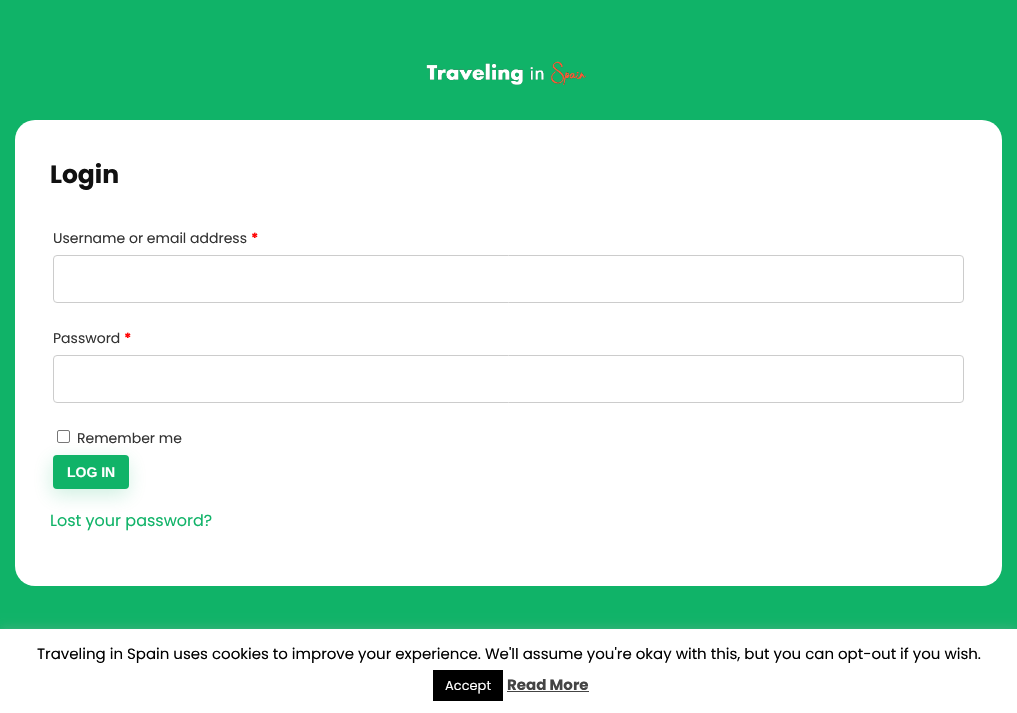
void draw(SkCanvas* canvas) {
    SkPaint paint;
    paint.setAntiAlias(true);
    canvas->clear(0xFF10B368);
    canvas->drawImageRect(SkImages::DeferredFromEncodedData(SkData::MakeFromFileName("img1.png")), SkRect::MakeXYWH(426, 61, 160, 24), SkSamplingOptions());
    paint.setColor(0xFFFFFFFF);
    canvas->drawRoundRect(SkRect::MakeXYWH(15, 120, 987, 466), 20, 20, paint);
    SkFont font1(fontMgr->matchFamilyStyle("Poppins", SkFontStyle::Bold()), 25);
    font1.setSubpixel(true);
    paint.setColor(0xFF111111);
    canvas->drawString("Login", 50, 183, font1, paint);
    SkFont font2(fontMgr->matchFamilyStyle("Poppins", SkFontStyle::Normal()), 14);
    font2.setSubpixel(true);
    paint.setColor(0xFF333333);
    canvas->drawString("Username or email address", 53, 243, font2, paint);
    SkFont font3(fontMgr->matchFamilyStyle("Poppins", SkFontStyle::Bold()), 14);
    font3.setSubpixel(true);
    paint.setColor(0xFFFF0000);
    canvas->drawString("*", 251, 243, font3, paint);
    paint.setStyle(SkPaint::kStroke_Style);
    paint.setStrokeWidth(1);
    paint.setColor(0xFFCCCCCC);
    canvas->drawRoundRect(SkRect::MakeXYWH(53.5f, 255.5f, 910, 47), 3.5f, 3.5f, paint);
    paint.setStyle(SkPaint::kFill_Style);
    paint.setColor(0xFF333333);
    canvas->drawString("Password", 53, 343, font2, paint);
    paint.setColor(0xFFFF0000);
    canvas->drawString("*", 124, 343, font3, paint);
    paint.setStyle(SkPaint::kStroke_Style);
    paint.setColor(0xFFCCCCCC);
    canvas->drawRoundRect(SkRect::MakeXYWH(53.5f, 355.5f, 910, 47), 3.5f, 3.5f, paint);
    paint.setColor(0xFF767676);
    canvas->drawRoundRect(SkRect::MakeXYWH(57.5f, 430.5f, 12, 12), 1.5f, 1.5f, paint);
    paint.setStyle(SkPaint::kFill_Style);
    paint.setColor(0xFF333333);
    canvas->drawString("Remember me", 77, 443, font2, paint);
    paint.setColor(0x3310B368);
    paint.setMaskFilter(SkMaskFilter::MakeBlur(kNormal_SkBlurStyle, 9.5f));
    canvas->drawRoundRect(SkRect::MakeXYWH(52, 461, 76, 34), 4, 4, paint);
    paint.setMaskFilter(nullptr);
    paint.setColor(0xFF10B368);
    canvas->drawRoundRect(SkRect::MakeXYWH(53, 455, 76, 34), 4, 4, paint);
    SkFont font4(fontMgr->matchFamilyStyle("Liberation Sans", SkFontStyle::Bold()), 14);
    font4.setSubpixel(true);
    paint.setColor(0xFFFFFFFF);
    canvas->drawString("LOG IN", 67, 477, font4, paint);
    SkFont font5(fontMgr->matchFamilyStyle("Poppins", SkFontStyle::Normal()), 16);
    font5.setSubpixel(true);
    paint.setColor(0xFF10B368);
    canvas->drawString("Lost your password?", 50, 526, font5, paint);
    paint.setColor(0x4DACABAB);
    paint.setMaskFilter(SkMaskFilter::MakeBlur(kNormal_SkBlurStyle, 5));
    canvas->drawRect(SkRect::MakeXYWH(0, 628, 1017, 84), paint);
    paint.setMaskFilter(nullptr);
    paint.setColor(0xFFFFFFFF);
    canvas->drawRect(SkRect::MakeXYWH(0, 629, 1017, 84), paint);
    SkFont font6(fontMgr->matchFamilyStyle("Poppins", SkFontStyle::Normal()), 15);
    font6.setSubpixel(true);
    paint.setColor(0xFF000000);
    canvas->drawString("Traveling in Spain uses cookies to improve your experience. We'll assume you're okay with this, but you can opt-out if you wish.", 37, 659, font6, paint);
    canvas->drawRect(SkRect::MakeXYWH(433, 670, 70, 31), paint);
    SkFont font7(fontMgr->matchFamilyStyle("Poppins", SkFontStyle::Normal()), 13);
    font7.setSubpixel(true);
    paint.setColor(0xFFFFFFFF);
    canvas->drawString("Accept", 445, 690, font7, paint);
    SkFont font8(fontMgr->matchFamilyStyle("Poppins", SkFontStyle::Bold()), 15);
    font8.setSubpixel(true);
    paint.setColor(0xFF444444);
    canvas->drawString("Read More", 507, 690, font8, paint);
    canvas->drawRect(SkRect::MakeXYWH(507, 691, 82, 1), paint);
}
